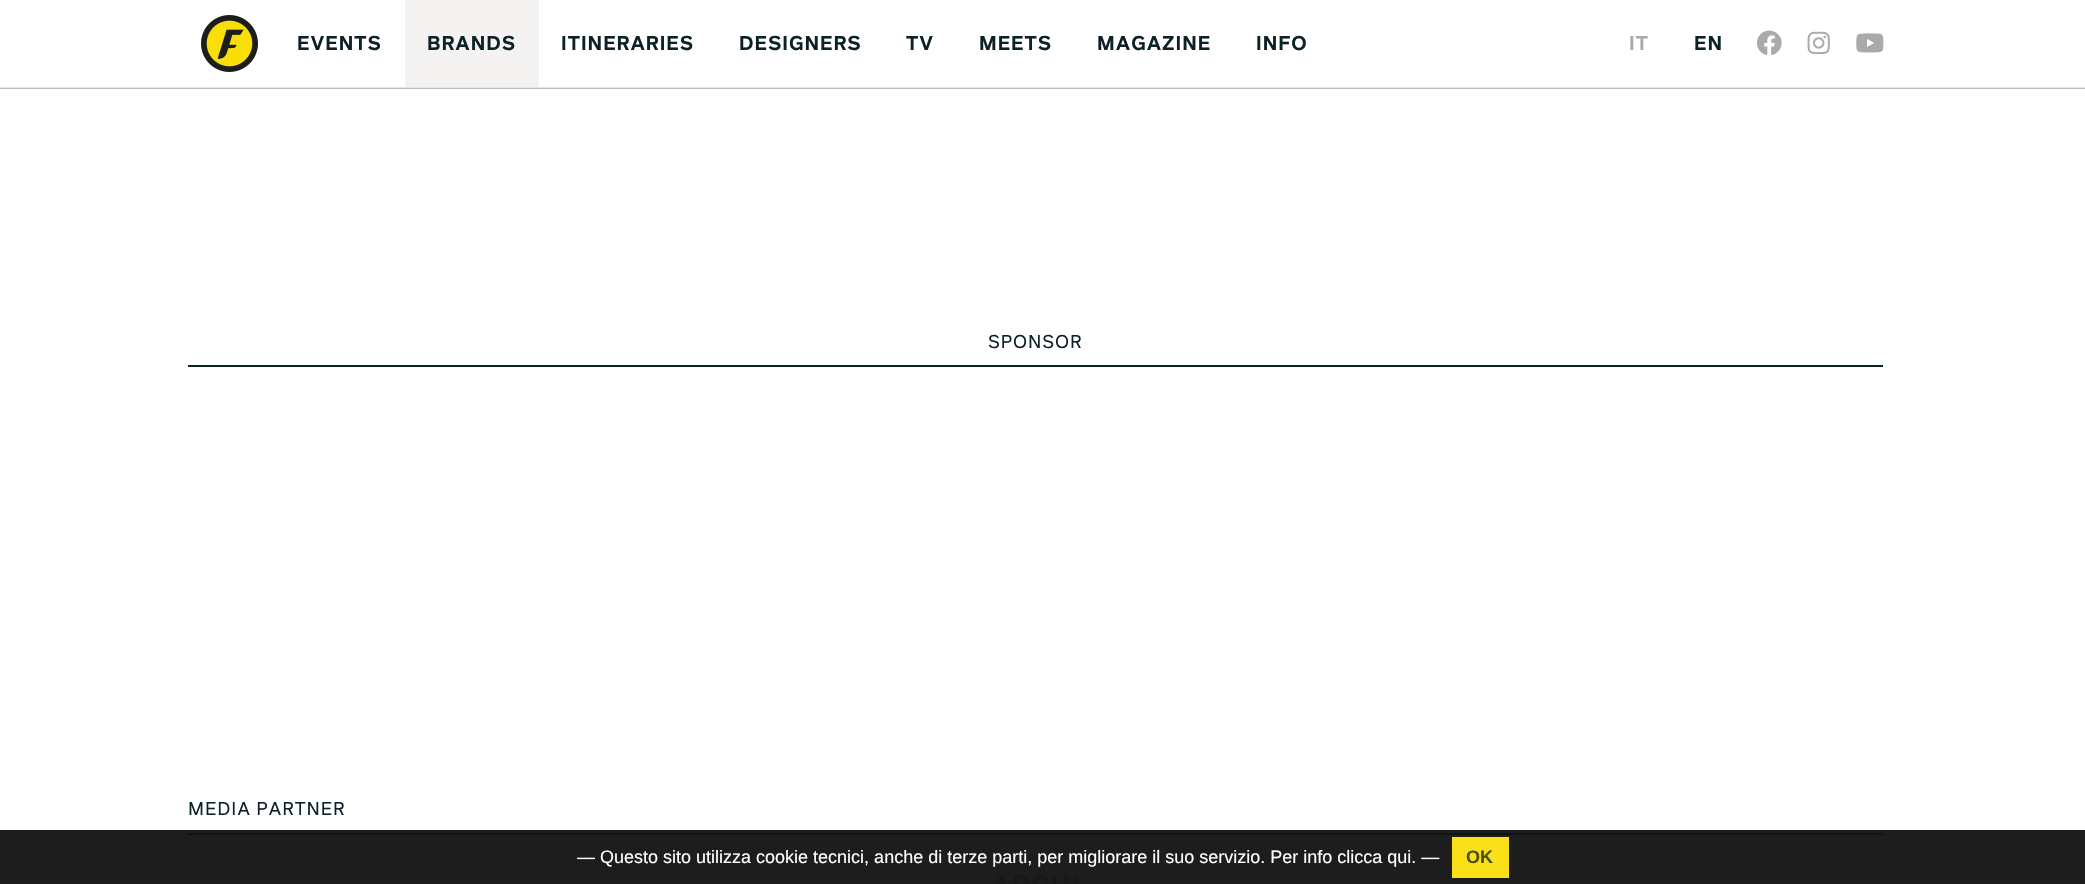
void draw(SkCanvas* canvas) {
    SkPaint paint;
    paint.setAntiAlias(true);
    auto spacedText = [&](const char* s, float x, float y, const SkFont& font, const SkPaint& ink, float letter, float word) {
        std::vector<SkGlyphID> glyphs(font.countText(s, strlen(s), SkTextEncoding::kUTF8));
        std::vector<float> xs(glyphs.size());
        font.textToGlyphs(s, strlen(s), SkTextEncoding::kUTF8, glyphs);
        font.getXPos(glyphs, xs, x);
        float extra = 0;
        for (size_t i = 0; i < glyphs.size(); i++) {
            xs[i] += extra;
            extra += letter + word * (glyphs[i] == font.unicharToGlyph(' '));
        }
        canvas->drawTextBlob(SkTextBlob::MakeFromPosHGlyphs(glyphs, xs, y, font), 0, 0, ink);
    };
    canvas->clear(0xFFFFFFFF);
    paint.setColor(0xFF1D1D1D);
    canvas->drawRect(SkRect::MakeXYWH(0, 830, 2085, 54), paint);
    canvas->drawImageRect(SkImages::DeferredFromEncodedData(SkData::MakeFromFileName("img1.png")), SkRect::MakeXYWH(0, 87, 2085, 2), SkSamplingOptions());
    canvas->drawImageRect(SkImages::DeferredFromEncodedData(SkData::MakeFromFileName("img2.png")), SkRect::MakeXYWH(201, 15, 57, 57), SkSamplingOptions());
    SkFont font1(fontMgr->matchFamilyStyle("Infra", SkFontStyle(600, SkFontStyle::kNormal_Width, SkFontStyle::kUpright_Slant)), 19.5f);
    font1.setSubpixel(true);
    paint.setColor(0xFF0C2227);
    spacedText("EVENTS", 297, 50, font1, paint, 1, 0);
    paint.setColor(0xFFF4F3F1);
    canvas->drawRect(SkRect::MakeXYWH(405, 0, 134, 87), paint);
    paint.setColor(0xFF0C2227);
    spacedText("BRANDS", 427, 50, font1, paint, 1, 0);
    spacedText("ITINERARIES", 561, 50, font1, paint, 1, 0);
    spacedText("DESIGNERS", 739, 50, font1, paint, 1, 0);
    spacedText("TV", 906, 50, font1, paint, 1, 0);
    spacedText("MEETS", 979, 50, font1, paint, 1, 0);
    spacedText("MAGAZINE", 1097, 50, font1, paint, 1, 0);
    spacedText("INFO", 1256, 50, font1, paint, 1, 0);
    paint.setColor(0xFFAAAAAA);
    spacedText("IT", 1629, 50, font1, paint, 1, 0);
    paint.setColor(0xFF0C2227);
    spacedText("EN", 1694, 50, font1, paint, 1, 0);
    canvas->drawImageRect(SkImages::DeferredFromEncodedData(SkData::MakeFromFileName("img3.png")), SkRect::MakeXYWH(1756, 30, 26, 25), SkSamplingOptions());
    canvas->drawImageRect(SkImages::DeferredFromEncodedData(SkData::MakeFromFileName("img4.png")), SkRect::MakeXYWH(1807, 31, 23, 24), SkSamplingOptions());
    canvas->drawImageRect(SkImages::DeferredFromEncodedData(SkData::MakeFromFileName("img5.png")), SkRect::MakeXYWH(1856, 33, 28, 20), SkSamplingOptions());
    canvas->drawRect(SkRect::MakeXYWH(188, 365, 1695, 2), paint);
    SkFont font2(fontMgr->matchFamilyStyle("Infra", SkFontStyle::Normal()), 18);
    font2.setSubpixel(true);
    spacedText("SPONSOR", 988, 348, font2, paint, 0.9f, 0);
    paint.setColor(0xFF111212);
    canvas->drawRect(SkRect::MakeXYWH(188, 833, 1695, 2), paint);
    paint.setColor(0xFF0C2227);
    spacedText("MEDIA PARTNER", 188, 815, font2, paint, 0.9f, 0);
    canvas->drawImageRect(SkImages::DeferredFromEncodedData(SkData::MakeFromFileName("img6.png")), SkRect::MakeXYWH(995, 874, 84, 10), SkSamplingOptions());
    SkFont font3(fontMgr->matchFamilyStyle("Liberation Sans", SkFontStyle::Normal()), 18);
    font3.setSubpixel(true);
    paint.setColor(0xFFFFFFFF);
    canvas->drawString("— Questo sito utilizza cookie tecnici, anche di terze parti, per migliorare il suo servizio. Per info clicca qui. —", 577, 863, font3, paint);
    paint.setColor(0xFFFAE019);
    canvas->drawRect(SkRect::MakeXYWH(1452, 837, 57, 41), paint);
    SkFont font4(fontMgr->matchFamilyStyle("Liberation Sans", SkFontStyle::Bold()), 18);
    font4.setSubpixel(true);
    paint.setColor(0xFF4D4D0D);
    canvas->drawString("OK", 1466, 863, font4, paint);
}
